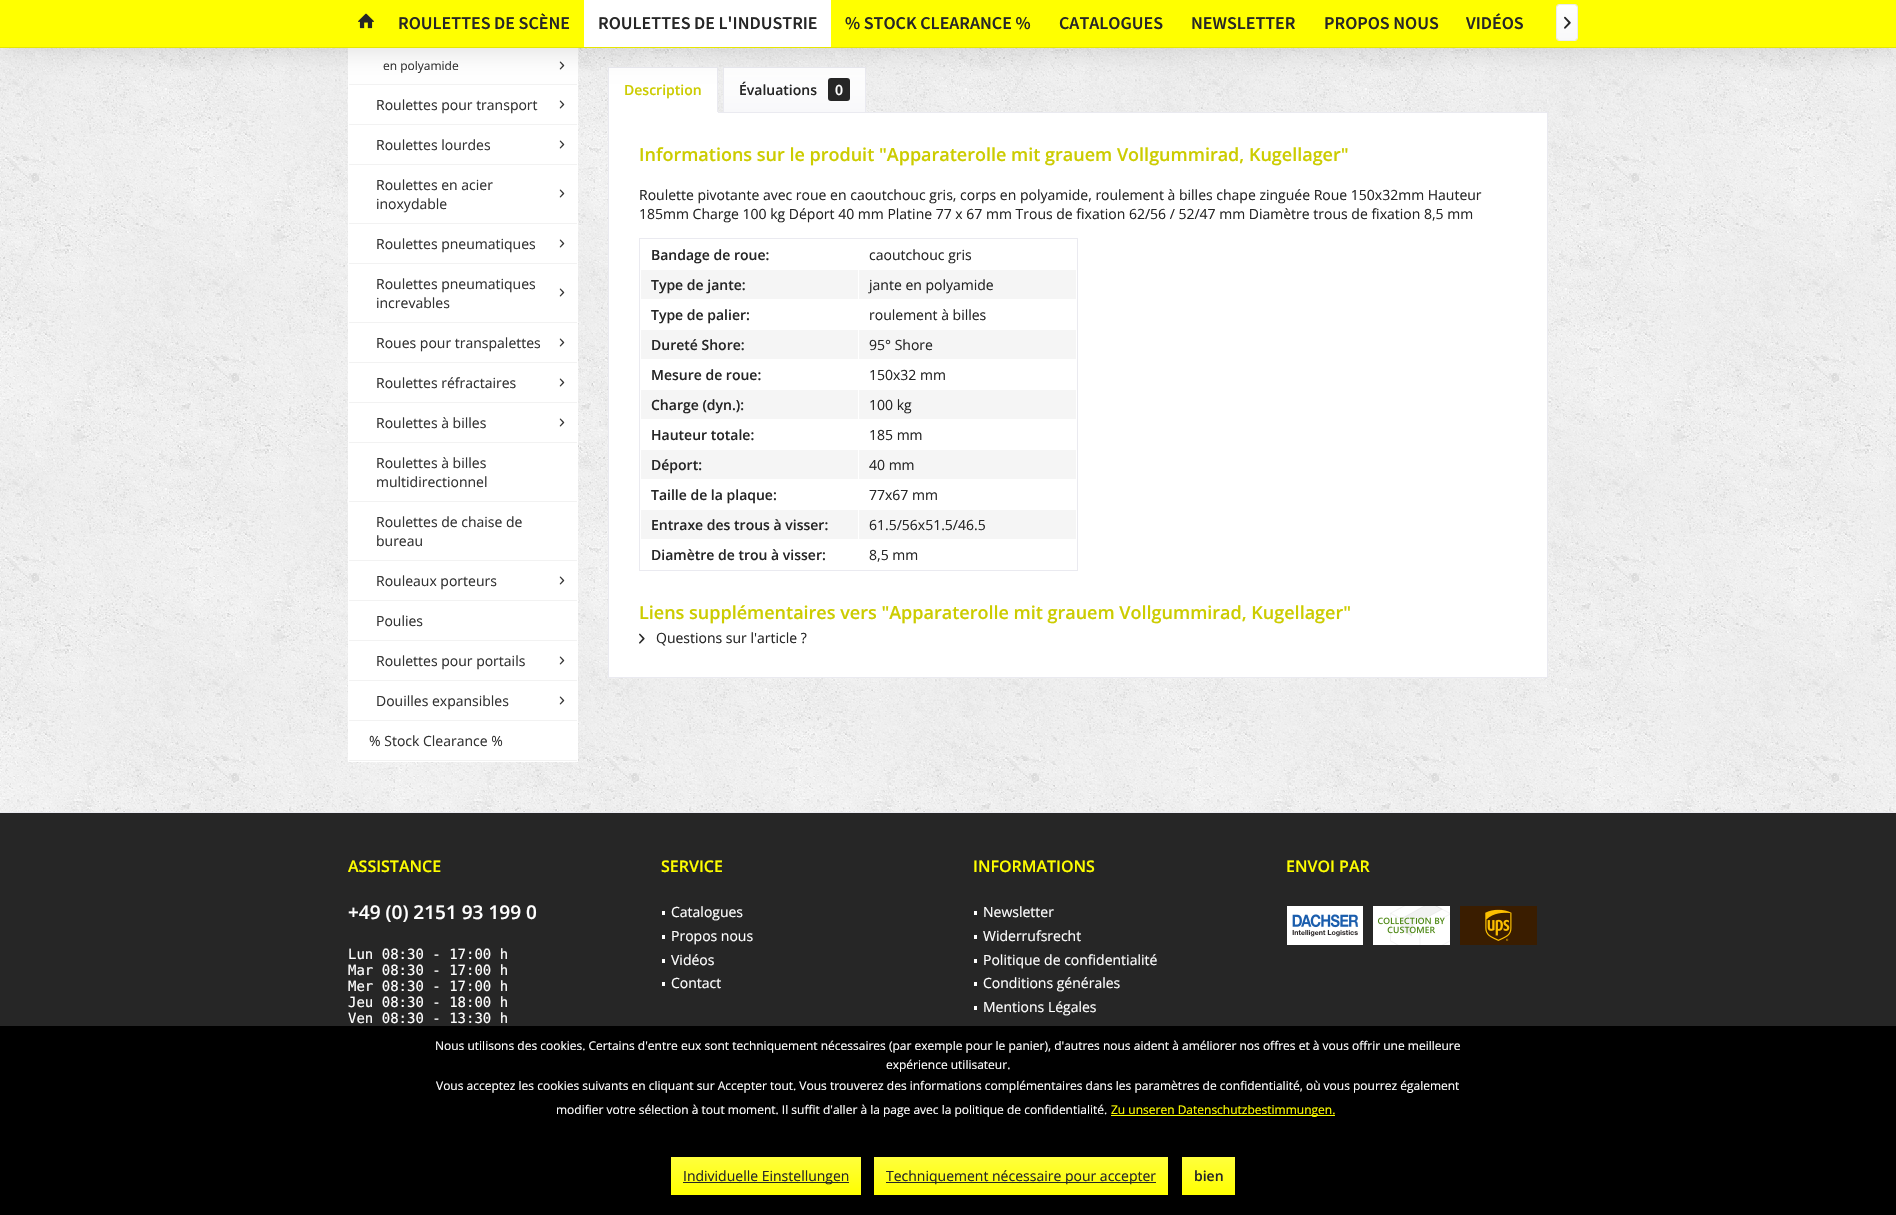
void draw(SkCanvas* canvas) {
    SkPaint paint;
    paint.setAntiAlias(true);
    canvas->clear(0xFFFFFFFF);
    canvas->drawImageRect(SkImages::DeferredFromEncodedData(SkData::MakeFromFileName("img1.png")), SkRect::MakeXYWH(0, 48, 1896, 764), SkSamplingOptions());
    paint.setColor(0xFFFFFFFF);
    canvas->drawRect(SkRect::MakeXYWH(349, 48, 228, 712), paint);
    canvas->drawRect(SkRect::MakeXYWH(577, 48, 1, 714), paint);
    canvas->drawRect(SkRect::MakeXYWH(348, 761, 230, 1), paint);
    canvas->drawRect(SkRect::MakeXYWH(348, 48, 1, 714), paint);
    paint.setColor(0xFFF2F2F2);
    canvas->drawRect(SkRect::MakeXYWH(349, 84, 228, 1), paint);
    canvas->drawImageRect(SkImages::DeferredFromEncodedData(SkData::MakeFromFileName("img4.png")), SkRect::MakeXYWH(559, 61, 6, 9), SkSamplingOptions());
    paint.setColor(0xFFFFFFFF);
    canvas->drawRect(SkRect::MakeXYWH(609, 68, 108, 44), paint);
    paint.setColor(0xFFEAEAF0);
    canvas->drawRect(SkRect::MakeXYWH(608, 67, 110, 1), paint);
    paint.setColor(0xFFFFFFFF);
    canvas->drawRect(SkRect::MakeXYWH(608.5f, 112.5f, 939, 565), paint);
    paint.setStyle(SkPaint::kStroke_Style);
    paint.setStrokeWidth(1);
    paint.setColor(0xFFEAEAF0);
    canvas->drawRect(SkRect::MakeXYWH(608.5f, 112.5f, 939, 565), paint);
    paint.setStyle(SkPaint::kFill_Style);
    canvas->drawRect(SkRect::MakeXYWH(717, 67, 1, 46), paint);
    paint.setColor(0xFFFFFFFF);
    canvas->drawRect(SkRect::MakeXYWH(608, 112, 110, 1), paint);
    paint.setColor(0xFFEAEAF0);
    canvas->drawRect(SkRect::MakeXYWH(608, 67, 1, 46), paint);
    {
        const SkColor colors[] = {0xFFFFFFFF, 0xFFF8F8FA};
        const float stops[] = {0, 1};
        const SkPoint ends[] = {{795, 68}, {795, 112}};
        paint.setShader(SkGradientShader::MakeLinear(ends, colors, stops, 2, SkTileMode::kClamp));
        paint.setAlpha(255);
    }
    canvas->drawRect(SkRect::MakeXYWH(724, 68, 141, 44), paint);
    paint.setStyle(SkPaint::kStroke_Style);
    paint.setShader(nullptr);
    paint.setColor(0xFFEAEAF0);
    canvas->drawRect(SkRect::MakeXYWH(723.5f, 67.5f, 142, 45), paint);
    paint.setStyle(SkPaint::kFill_Style);
    paint.setColor(0xFF262626);
    canvas->drawRoundRect(SkRect::MakeXYWH(828, 78, 22, 23), 3, 3, paint);
    paint.setColor(0x26000000);
    paint.setMaskFilter(SkMaskFilter::MakeBlur(kNormal_SkBlurStyle, 15));
    canvas->drawRect(SkRect::MakeXYWH(0, 0, 1896, 48), paint);
    paint.setMaskFilter(nullptr);
    paint.setColor(0xFFFFFF00);
    canvas->drawRect(SkRect::MakeXYWH(0, 0, 1896, 47), paint);
    paint.setColor(0xFFE6E600);
    canvas->drawRect(SkRect::MakeXYWH(0, 47, 1896, 1), paint);
    canvas->drawImageRect(SkImages::DeferredFromEncodedData(SkData::MakeFromFileName("img2.png")), SkRect::MakeXYWH(358, 13, 16, 16), SkSamplingOptions());
    SkFont font1(fontMgr->matchFamilyStyle("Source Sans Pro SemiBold", SkFontStyle(600, SkFontStyle::kNormal_Width, SkFontStyle::kUpright_Slant)), 18);
    font1.setSubpixel(true);
    paint.setColor(0xFF262626);
    canvas->drawString("ROULETTES DE SCÈNE", 398, 29, font1, paint);
    paint.setColor(0xFFFFFFFF);
    canvas->drawRect(SkRect::MakeXYWH(584, 0, 247, 47), paint);
    paint.setColor(0xFF262626);
    canvas->drawString("ROULETTES DE L'INDUSTRIE", 598, 29, font1, paint);
    canvas->drawString("% STOCK CLEARANCE %", 845, 29, font1, paint);
    canvas->drawString("CATALOGUES", 1059, 29, font1, paint);
    canvas->drawString("NEWSLETTER", 1191, 29, font1, paint);
    canvas->drawString("PROPOS NOUS", 1324, 29, font1, paint);
    canvas->drawString("VIDÉOS", 1466, 29, font1, paint);
    {
        const SkColor colors[] = {0xFFFFFFFF, 0xFFF8F8FA};
        const float stops[] = {0, 1};
        const SkPoint ends[] = {{1567, 5}, {1567, 40}};
        paint.setShader(SkGradientShader::MakeLinear(ends, colors, stops, 2, SkTileMode::kClamp));
        paint.setAlpha(255);
    }
    canvas->drawRoundRect(SkRect::MakeXYWH(1557, 5, 20, 35), 2, 2, paint);
    paint.setStyle(SkPaint::kStroke_Style);
    paint.setShader(nullptr);
    paint.setColor(0xFFEAEAF0);
    canvas->drawRoundRect(SkRect::MakeXYWH(1556.5f, 4.5f, 21, 36), 2.5f, 2.5f, paint);
    canvas->drawImageRect(SkImages::DeferredFromEncodedData(SkData::MakeFromFileName("img3.png")), SkRect::MakeXYWH(1564, 16, 7, 13), SkSamplingOptions());
    SkFont font2(fontMgr->matchFamilyStyle("Open Sans", SkFontStyle::Normal()), 12);
    font2.setSubpixel(true);
    paint.setStyle(SkPaint::kFill_Style);
    paint.setColor(0xFF333333);
    canvas->drawString("en polyamide", 383, 70, font2, paint);
    paint.setColor(0xFFF2F2F2);
    canvas->drawRect(SkRect::MakeXYWH(349, 124, 228, 1), paint);
    SkFont font3(fontMgr->matchFamilyStyle("Open Sans", SkFontStyle::Normal()), 14);
    font3.setSubpixel(true);
    paint.setColor(0xFF333333);
    canvas->drawString("Roulettes pour transport", 376, 110, font3, paint);
    canvas->drawImageRect(SkImages::DeferredFromEncodedData(SkData::MakeFromFileName("img4.png")), SkRect::MakeXYWH(559, 100, 6, 9), SkSamplingOptions());
    paint.setColor(0xFFF2F2F2);
    canvas->drawRect(SkRect::MakeXYWH(349, 164, 228, 1), paint);
    paint.setColor(0xFF333333);
    canvas->drawString("Roulettes lourdes", 376, 150, font3, paint);
    canvas->drawImageRect(SkImages::DeferredFromEncodedData(SkData::MakeFromFileName("img4.png")), SkRect::MakeXYWH(559, 140, 6, 9), SkSamplingOptions());
    paint.setColor(0xFFF2F2F2);
    canvas->drawRect(SkRect::MakeXYWH(349, 223, 228, 1), paint);
    paint.setColor(0xFF333333);
    canvas->drawString("Roulettes en acier", 376, 190, font3, paint);
    canvas->drawImageRect(SkImages::DeferredFromEncodedData(SkData::MakeFromFileName("img4.png")), SkRect::MakeXYWH(559, 189, 6, 9), SkSamplingOptions());
    canvas->drawString("inoxydable", 376, 209, font3, paint);
    paint.setColor(0xFFF2F2F2);
    canvas->drawRect(SkRect::MakeXYWH(349, 263, 228, 1), paint);
    paint.setColor(0xFF333333);
    canvas->drawString("Roulettes pneumatiques", 376, 249, font3, paint);
    canvas->drawImageRect(SkImages::DeferredFromEncodedData(SkData::MakeFromFileName("img4.png")), SkRect::MakeXYWH(559, 239, 6, 9), SkSamplingOptions());
    paint.setColor(0xFFF2F2F2);
    canvas->drawRect(SkRect::MakeXYWH(349, 322, 228, 1), paint);
    paint.setColor(0xFF333333);
    canvas->drawString("Roulettes pneumatiques", 376, 289, font3, paint);
    canvas->drawImageRect(SkImages::DeferredFromEncodedData(SkData::MakeFromFileName("img4.png")), SkRect::MakeXYWH(559, 288, 6, 9), SkSamplingOptions());
    canvas->drawString("increvables", 376, 308, font3, paint);
    paint.setColor(0xFFF2F2F2);
    canvas->drawRect(SkRect::MakeXYWH(349, 362, 228, 1), paint);
    paint.setColor(0xFF333333);
    canvas->drawString("Roues pour transpalettes", 376, 348, font3, paint);
    canvas->drawImageRect(SkImages::DeferredFromEncodedData(SkData::MakeFromFileName("img4.png")), SkRect::MakeXYWH(559, 338, 6, 9), SkSamplingOptions());
    paint.setColor(0xFFF2F2F2);
    canvas->drawRect(SkRect::MakeXYWH(349, 402, 228, 1), paint);
    paint.setColor(0xFF333333);
    canvas->drawString("Roulettes réfractaires", 376, 388, font3, paint);
    canvas->drawImageRect(SkImages::DeferredFromEncodedData(SkData::MakeFromFileName("img4.png")), SkRect::MakeXYWH(559, 378, 6, 9), SkSamplingOptions());
    paint.setColor(0xFFF2F2F2);
    canvas->drawRect(SkRect::MakeXYWH(349, 442, 228, 1), paint);
    paint.setColor(0xFF333333);
    canvas->drawString("Roulettes à billes", 376, 428, font3, paint);
    canvas->drawImageRect(SkImages::DeferredFromEncodedData(SkData::MakeFromFileName("img4.png")), SkRect::MakeXYWH(559, 418, 6, 9), SkSamplingOptions());
    paint.setColor(0xFFF2F2F2);
    canvas->drawRect(SkRect::MakeXYWH(349, 501, 228, 1), paint);
    paint.setColor(0xFF333333);
    canvas->drawString("Roulettes à billes", 376, 468, font3, paint);
    canvas->drawString("multidirectionnel", 376, 487, font3, paint);
    paint.setColor(0xFFF2F2F2);
    canvas->drawRect(SkRect::MakeXYWH(349, 560, 228, 1), paint);
    paint.setColor(0xFF333333);
    canvas->drawString("Roulettes de chaise de", 376, 527, font3, paint);
    canvas->drawString("bureau", 376, 546, font3, paint);
    paint.setColor(0xFFF2F2F2);
    canvas->drawRect(SkRect::MakeXYWH(349, 600, 228, 1), paint);
    paint.setColor(0xFF333333);
    canvas->drawString("Rouleaux porteurs", 376, 586, font3, paint);
    canvas->drawImageRect(SkImages::DeferredFromEncodedData(SkData::MakeFromFileName("img4.png")), SkRect::MakeXYWH(559, 576, 6, 9), SkSamplingOptions());
    paint.setColor(0xFFF2F2F2);
    canvas->drawRect(SkRect::MakeXYWH(349, 640, 228, 1), paint);
    paint.setColor(0xFF333333);
    canvas->drawString("Poulies", 376, 626, font3, paint);
    paint.setColor(0xFFF2F2F2);
    canvas->drawRect(SkRect::MakeXYWH(349, 680, 228, 1), paint);
    paint.setColor(0xFF333333);
    canvas->drawString("Roulettes pour portails", 376, 666, font3, paint);
    canvas->drawImageRect(SkImages::DeferredFromEncodedData(SkData::MakeFromFileName("img4.png")), SkRect::MakeXYWH(559, 656, 6, 9), SkSamplingOptions());
    paint.setColor(0xFFF2F2F2);
    canvas->drawRect(SkRect::MakeXYWH(349, 720, 228, 1), paint);
    paint.setColor(0xFF333333);
    canvas->drawString("Douilles expansibles", 376, 706, font3, paint);
    canvas->drawImageRect(SkImages::DeferredFromEncodedData(SkData::MakeFromFileName("img4.png")), SkRect::MakeXYWH(559, 696, 6, 9), SkSamplingOptions());
    paint.setColor(0xFFF2F2F2);
    canvas->drawRect(SkRect::MakeXYWH(349, 760, 228, 1), paint);
    paint.setColor(0xFF333333);
    canvas->drawString("% Stock Clearance %", 369, 746, font3, paint);
    SkFont font4(fontMgr->matchFamilyStyle("Open Sans", SkFontStyle(600, SkFontStyle::kNormal_Width, SkFontStyle::kUpright_Slant)), 14);
    font4.setSubpixel(true);
    paint.setColor(0xFFCCCC00);
    canvas->drawString("Description", 624, 95, font4, paint);
    paint.setColor(0xFF262626);
    canvas->drawString("Évaluations", 739, 95, font4, paint);
    paint.setColor(0xFFFFFFFF);
    canvas->drawString("0", 835, 95, font4, paint);
    SkFont font5(fontMgr->matchFamilyStyle("Open Sans", SkFontStyle(600, SkFontStyle::kNormal_Width, SkFontStyle::kUpright_Slant)), 18);
    font5.setSubpixel(true);
    paint.setColor(0xFFCCCC00);
    canvas->drawString("Informations sur le produit \"Apparaterolle mit grauem Vollgummirad, Kugellager\"", 639, 161, font5, paint);
    paint.setColor(0xFF262626);
    canvas->drawString("Roulette pivotante avec roue en caoutchouc gris, corps en polyamide, roulement à billes chape zinguée Roue 150x32mm Hauteur", 639, 200, font3, paint);
    canvas->drawString("185mm Charge 100 kg Déport 40 mm Platine 77 x 67 mm Trous de fixation 62/56 / 52/47 mm Diamètre trous de fixation 8,5 mm", 639, 219, font3, paint);
    paint.setStyle(SkPaint::kStroke_Style);
    paint.setColor(0xFFEAEAF0);
    canvas->drawRect(SkRect::MakeXYWH(639.5f, 238.5f, 438, 332), paint);
    paint.setStyle(SkPaint::kFill_Style);
    paint.setColor(0xFF262626);
    canvas->drawString("Bandage de roue:", 651, 260, font4, paint);
    canvas->drawString("caoutchouc gris", 869, 260, font3, paint);
    paint.setColor(0xFFF5F5F5);
    canvas->drawRect(SkRect::MakeXYWH(641, 270, 217, 29), paint);
    paint.setColor(0xFF262626);
    canvas->drawString("Type de jante:", 651, 290, font4, paint);
    paint.setColor(0xFFF5F5F5);
    canvas->drawRect(SkRect::MakeXYWH(859, 270, 217, 29), paint);
    paint.setColor(0xFF262626);
    canvas->drawString("jante en polyamide", 869, 290, font3, paint);
    canvas->drawString("Type de palier:", 651, 320, font4, paint);
    canvas->drawString("roulement à billes", 869, 320, font3, paint);
    paint.setColor(0xFFF5F5F5);
    canvas->drawRect(SkRect::MakeXYWH(641, 330, 217, 29), paint);
    paint.setColor(0xFF262626);
    canvas->drawString("Dureté Shore:", 651, 350, font4, paint);
    paint.setColor(0xFFF5F5F5);
    canvas->drawRect(SkRect::MakeXYWH(859, 330, 217, 29), paint);
    paint.setColor(0xFF262626);
    canvas->drawString("95° Shore", 869, 350, font3, paint);
    canvas->drawString("Mesure de roue:", 651, 380, font4, paint);
    canvas->drawString("150x32 mm", 869, 380, font3, paint);
    paint.setColor(0xFFF5F5F5);
    canvas->drawRect(SkRect::MakeXYWH(641, 390, 217, 29), paint);
    paint.setColor(0xFF262626);
    canvas->drawString("Charge (dyn.):", 651, 410, font4, paint);
    paint.setColor(0xFFF5F5F5);
    canvas->drawRect(SkRect::MakeXYWH(859, 390, 217, 29), paint);
    paint.setColor(0xFF262626);
    canvas->drawString("100 kg", 869, 410, font3, paint);
    canvas->drawString("Hauteur totale:", 651, 440, font4, paint);
    canvas->drawString("185 mm", 869, 440, font3, paint);
    paint.setColor(0xFFF5F5F5);
    canvas->drawRect(SkRect::MakeXYWH(641, 450, 217, 29), paint);
    paint.setColor(0xFF262626);
    canvas->drawString("Déport:", 651, 470, font4, paint);
    paint.setColor(0xFFF5F5F5);
    canvas->drawRect(SkRect::MakeXYWH(859, 450, 217, 29), paint);
    paint.setColor(0xFF262626);
    canvas->drawString("40 mm", 869, 470, font3, paint);
    canvas->drawString("Taille de la plaque:", 651, 500, font4, paint);
    canvas->drawString("77x67 mm", 869, 500, font3, paint);
    paint.setColor(0xFFF5F5F5);
    canvas->drawRect(SkRect::MakeXYWH(641, 510, 217, 29), paint);
    paint.setColor(0xFF262626);
    canvas->drawString("Entraxe des trous à visser:", 651, 530, font4, paint);
    paint.setColor(0xFFF5F5F5);
    canvas->drawRect(SkRect::MakeXYWH(859, 510, 217, 29), paint);
    paint.setColor(0xFF262626);
    canvas->drawString("61.5/56x51.5/46.5", 869, 530, font3, paint);
    canvas->drawString("Diamètre de trou à visser:", 651, 560, font4, paint);
    canvas->drawString("8,5 mm", 869, 560, font3, paint);
    paint.setColor(0xFFCCCC00);
    canvas->drawString("Liens supplémentaires vers \"Apparaterolle mit grauem Vollgummirad, Kugellager\"", 639, 619, font5, paint);
    canvas->drawImageRect(SkImages::DeferredFromEncodedData(SkData::MakeFromFileName("img5.png")), SkRect::MakeXYWH(639, 633, 6, 11), SkSamplingOptions());
    paint.setColor(0xFF262626);
    canvas->drawString("Questions sur l'article ?", 656, 643, font3, paint);
    canvas->drawRect(SkRect::MakeXYWH(0, 813, 1896, 213), paint);
    paint.setColor(0xFFEAEAF0);
    canvas->drawRect(SkRect::MakeXYWH(0, 812, 1896, 1), paint);
    SkFont font6(fontMgr->matchFamilyStyle("Open Sans", SkFontStyle(600, SkFontStyle::kNormal_Width, SkFontStyle::kUpright_Slant)), 16);
    font6.setSubpixel(true);
    paint.setColor(0xFFFFFF00);
    canvas->drawString("ASSISTANCE", 348, 872, font6, paint);
    SkFont font7(fontMgr->matchFamilyStyle("Open Sans", SkFontStyle(600, SkFontStyle::kNormal_Width, SkFontStyle::kUpright_Slant)), 19);
    font7.setSubpixel(true);
    paint.setColor(0xFFFFFFFF);
    canvas->drawString("+49 (0) 2151 93 199 0", 348, 919, font7, paint);
    SkFont font8(fontMgr->matchFamilyStyle("DejaVu Sans Mono", SkFontStyle::Normal()), 14);
    font8.setSubpixel(true);
    canvas->drawString("Lun 08:30 - 17:00 h", 348, 959, font8, paint);
    canvas->drawString("Mar 08:30 - 17:00 h", 348, 975, font8, paint);
    canvas->drawString("Mer 08:30 - 17:00 h", 348, 991, font8, paint);
    canvas->drawString("Jeu 08:30 - 18:00 h", 348, 1007, font8, paint);
    canvas->drawString("Ven 08:30 - 13:30 h", 348, 1023, font8, paint);
    paint.setColor(0xFFFFFF00);
    canvas->drawString("SERVICE", 661, 872, font6, paint);
    paint.setColor(0xFFFFFFFF);
    canvas->drawRect(SkRect::MakeXYWH(662, 911, 3, 4), paint);
    canvas->drawString("Catalogues", 671, 917, font3, paint);
    canvas->drawRect(SkRect::MakeXYWH(662, 935, 3, 4), paint);
    canvas->drawString("Propos nous", 671, 941, font3, paint);
    canvas->drawRect(SkRect::MakeXYWH(662, 959, 3, 4), paint);
    canvas->drawString("Vidéos", 671, 965, font3, paint);
    canvas->drawRect(SkRect::MakeXYWH(662, 982, 3, 4), paint);
    canvas->drawString("Contact", 671, 988, font3, paint);
    paint.setColor(0xFFFFFF00);
    canvas->drawString("INFORMATIONS", 973, 872, font6, paint);
    paint.setColor(0xFFFFFFFF);
    canvas->drawRect(SkRect::MakeXYWH(974, 911, 3, 4), paint);
    canvas->drawString("Newsletter", 983, 917, font3, paint);
    canvas->drawRect(SkRect::MakeXYWH(974, 935, 3, 4), paint);
    canvas->drawString("Widerrufsrecht", 983, 941, font3, paint);
    canvas->drawRect(SkRect::MakeXYWH(974, 959, 3, 4), paint);
    canvas->drawString("Politique de confidentialité", 983, 965, font3, paint);
    canvas->drawRect(SkRect::MakeXYWH(974, 982, 3, 4), paint);
    canvas->drawString("Conditions générales", 983, 988, font3, paint);
    canvas->drawRect(SkRect::MakeXYWH(974, 1006, 3, 4), paint);
    canvas->drawString("Mentions Légales", 983, 1012, font3, paint);
    paint.setColor(0xFFFFFF00);
    canvas->drawString("ENVOI PAR", 1286, 872, font6, paint);
    canvas->drawImageRect(SkImages::DeferredFromEncodedData(SkData::MakeFromFileName("img6.png")), SkRect::MakeXYWH(1287, 906, 76, 39), SkSamplingOptions());
    canvas->drawImageRect(SkImages::DeferredFromEncodedData(SkData::MakeFromFileName("img7.png")), SkRect::MakeXYWH(1373, 906, 77, 39), SkSamplingOptions());
    canvas->drawImageRect(SkImages::DeferredFromEncodedData(SkData::MakeFromFileName("img8.png")), SkRect::MakeXYWH(1460, 906, 77, 39), SkSamplingOptions());
    paint.setColor(0xFF000000);
    canvas->drawRect(SkRect::MakeXYWH(0, 1026, 1896, 189), paint);
    paint.setColor(0xFFFFFFFF);
    canvas->drawString("Nous utilisons des cookies. Certains d'entre eux sont techniquement nécessaires (par exemple pour le panier), d'autres nous aident à améliorer nos offres et à vous offrir une meilleure", 435, 1050, font2, paint);
    canvas->drawString("expérience utilisateur.", 886, 1069, font2, paint);
    canvas->drawString("Vous acceptez les cookies suivants en cliquant sur Accepter tout. Vous trouverez des informations complémentaires dans les paramètres de confidentialité, où vous pourrez également", 436, 1090, font2, paint);
    canvas->drawString("modifier votre sélection à tout moment. Il suffit d'aller à la page avec la politique de confidentialité.", 556, 1114, font2, paint);
    paint.setColor(0xFFFFFF00);
    canvas->drawRect(SkRect::MakeXYWH(1111, 1115, 224, 1), paint);
    canvas->drawString("Zu unseren Datenschutzbestimmungen.", 1111, 1114, font2, paint);
    {
        const SkColor colors[] = {0xFFFFFF3D, 0xFFFFFF00};
        const float stops[] = {0, 1};
        const SkPoint ends[] = {{766, 1157}, {766, 1195}};
        paint.setShader(SkGradientShader::MakeLinear(ends, colors, stops, 2, SkTileMode::kClamp));
        paint.setAlpha(255);
    }
    canvas->drawRect(SkRect::MakeXYWH(671, 1157, 190, 38), paint);
    paint.setShader(nullptr);
    paint.setColor(0xFF262626);
    canvas->drawRect(SkRect::MakeXYWH(683, 1182, 166, 1), paint);
    canvas->drawString("Individuelle Einstellungen", 683, 1181, font3, paint);
    {
        const SkColor colors[] = {0xFFFFFF3D, 0xFFFFFF00};
        const float stops[] = {0, 1};
        const SkPoint ends[] = {{1021, 1157}, {1021, 1195}};
        paint.setShader(SkGradientShader::MakeLinear(ends, colors, stops, 2, SkTileMode::kClamp));
        paint.setAlpha(255);
    }
    canvas->drawRect(SkRect::MakeXYWH(874, 1157, 294, 38), paint);
    paint.setShader(nullptr);
    paint.setColor(0xFF262626);
    canvas->drawRect(SkRect::MakeXYWH(886, 1182, 270, 1), paint);
    canvas->drawString("Techniquement nécessaire pour accepter", 886, 1181, font3, paint);
    {
        const SkColor colors[] = {0xFFFFFF3D, 0xFFFFFF00};
        const float stops[] = {0, 1};
        const SkPoint ends[] = {{1209, 1157}, {1209, 1195}};
        paint.setShader(SkGradientShader::MakeLinear(ends, colors, stops, 2, SkTileMode::kClamp));
        paint.setAlpha(255);
    }
    canvas->drawRect(SkRect::MakeXYWH(1182, 1157, 53, 38), paint);
    paint.setShader(nullptr);
    paint.setColor(0xFF262626);
    canvas->drawString("bien", 1194, 1181, font4, paint);
}
